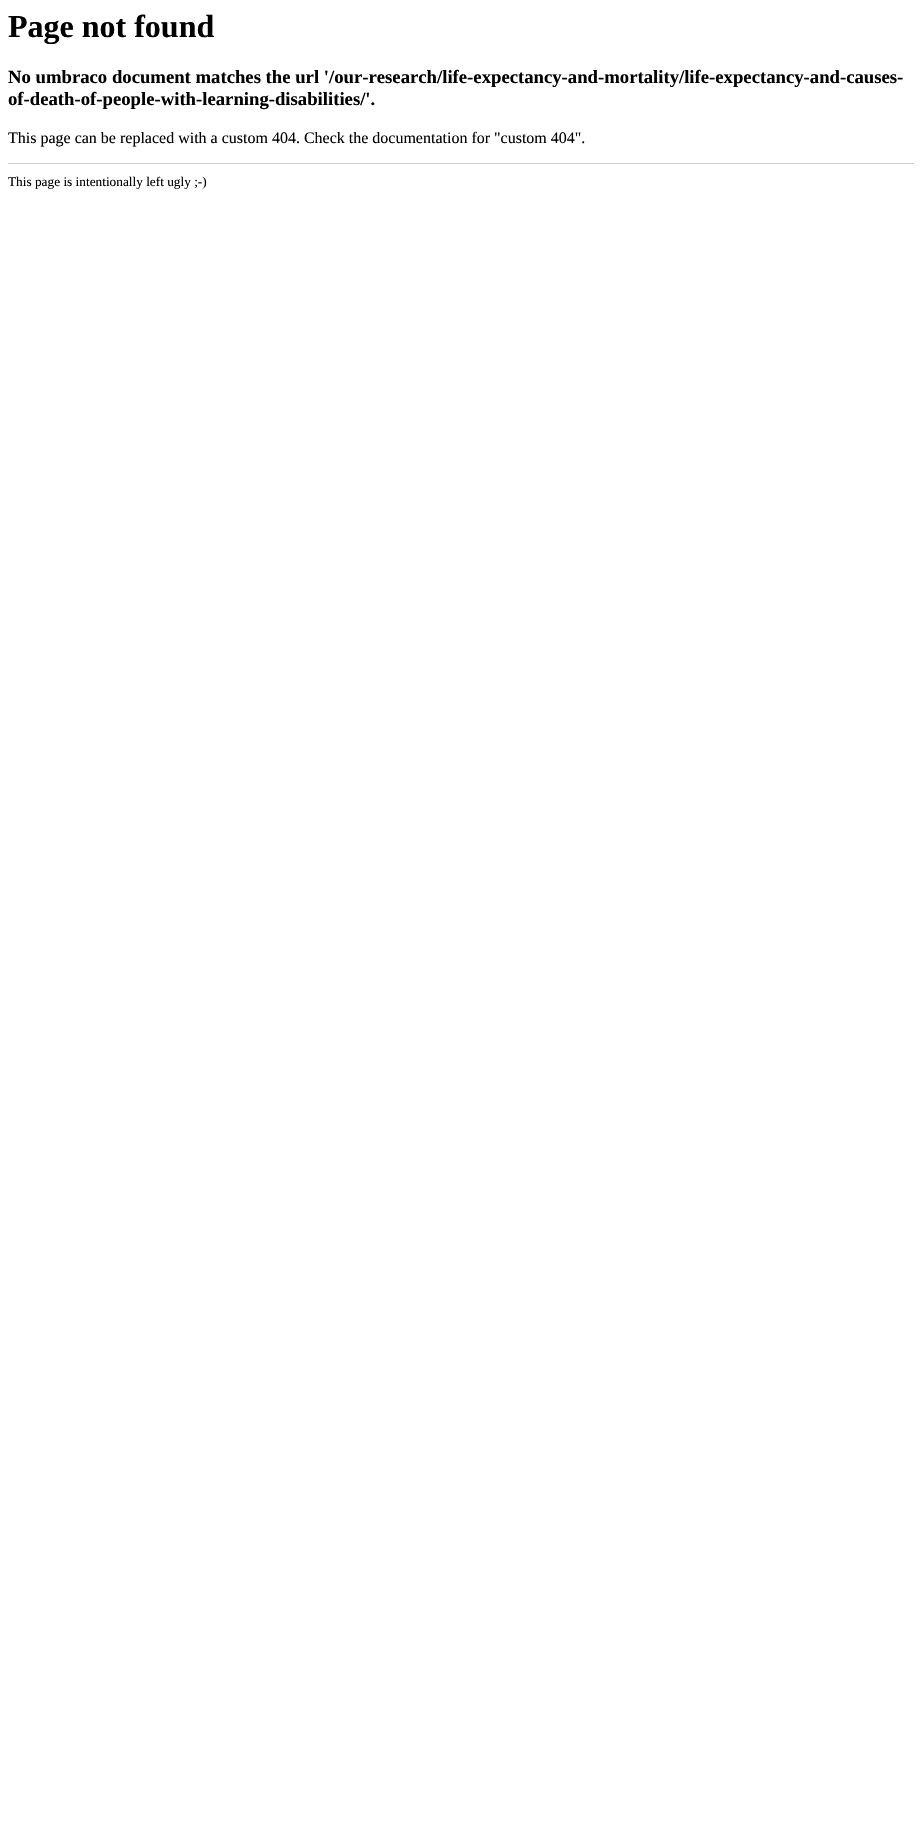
void draw(SkCanvas* canvas) {
    SkPaint paint;
    paint.setAntiAlias(true);
    canvas->clear(0xFFFFFFFF);
    SkFont font1(fontMgr->matchFamilyStyle("Liberation Serif", SkFontStyle::Bold()), 32);
    font1.setSubpixel(true);
    paint.setColor(0xFF000000);
    canvas->drawString("Page not found", 8, 37, font1, paint);
    SkFont font2(fontMgr->matchFamilyStyle("Liberation Serif", SkFontStyle::Bold()), 18.7f);
    font2.setSubpixel(true);
    canvas->drawString("No umbraco document matches the url '/our-research/life-expectancy-and-mortality/life-expectancy-and-causes-", 8, 83, font2, paint);
    canvas->drawString("of-death-of-people-with-learning-disabilities/'.", 8, 105, font2, paint);
    SkFont font3(fontMgr->matchFamilyStyle("Liberation Serif", SkFontStyle::Normal()), 16);
    font3.setSubpixel(true);
    canvas->drawString("This page can be replaced with a custom 404. Check the documentation for \"custom 404\".", 8, 143, font3, paint);
    paint.setColor(0xFFCCCCCC);
    canvas->drawRect(SkRect::MakeXYWH(8, 163, 906, 1), paint);
    SkFont font4(fontMgr->matchFamilyStyle("Liberation Serif", SkFontStyle::Normal()), 13.3f);
    font4.setSubpixel(true);
    paint.setColor(0xFF000000);
    canvas->drawString("This page is intentionally left ugly ;-)", 8, 186, font4, paint);
}
